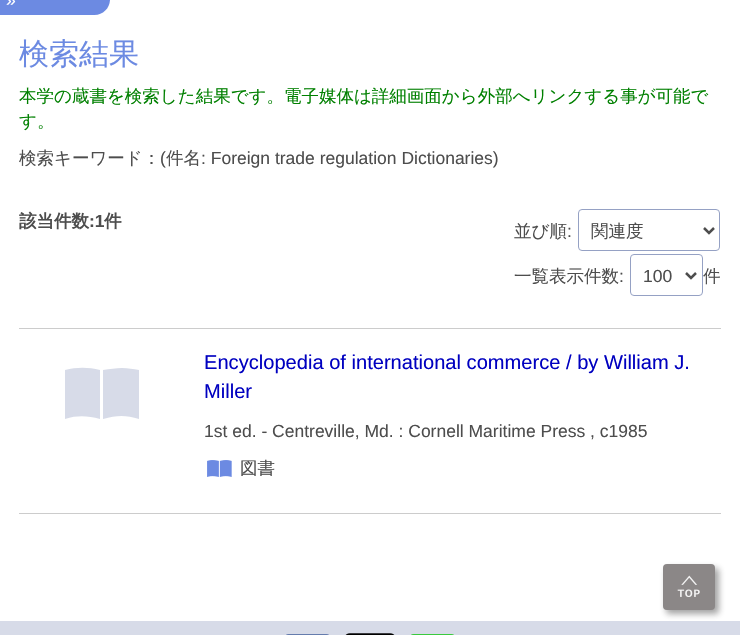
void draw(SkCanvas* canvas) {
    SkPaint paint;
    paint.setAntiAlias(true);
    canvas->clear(0xFFFFFFFF);
    paint.setColor(0xFF6C8AE2);
    canvas->drawPath(SkPathBuilder().moveTo(0, -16).lineTo(94.5f, -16).cubicTo(103, -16, 110, -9, 110, -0.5f).cubicTo(110, 8, 103, 15, 94.5f, 15).lineTo(0, 15).close().detach(), paint);
    SkFont font1(fontMgr->matchFamilyStyle("Liberation Sans", SkFontStyle::Normal()), 17.5f);
    font1.setSubpixel(true);
    paint.setColor(0xFFFFFFFF);
    canvas->drawString("»", 6, 6, font1, paint);
    SkFont font2(fontMgr->matchFamilyStyle("WenQuanYi Zen Hei", SkFontStyle(500, SkFontStyle::kNormal_Width, SkFontStyle::kUpright_Slant)), 30);
    font2.setSubpixel(true);
    paint.setColor(0xFF6C8AE2);
    canvas->drawString("検索結果", 19, 64, font2, paint);
    SkFont font3(fontMgr->matchFamilyStyle("WenQuanYi Zen Hei", SkFontStyle(500, SkFontStyle::kNormal_Width, SkFontStyle::kUpright_Slant)), 17.5f);
    font3.setSubpixel(true);
    paint.setColor(0xFF008000);
    canvas->drawString("本学の蔵書を検索した結果です。電子媒体は詳細画面から外部へリンクする事が可能で", 19, 102, font3, paint);
    canvas->drawString("す。", 19, 127, font3, paint);
    paint.setColor(0xFF4D4D4D);
    canvas->drawString("検索キーワード：", 19, 164, font3, paint);
    canvas->drawString("(", 160, 164, font1, paint);
    canvas->drawString("件名", 166, 164, font3, paint);
    canvas->drawString(": Foreign trade regulation Dictionaries)", 201, 164, font1, paint);
    SkFont font4(fontMgr->matchFamilyStyle("WenQuanYi Zen Hei", SkFontStyle::Bold()), 17.5f);
    font4.setSubpixel(true);
    canvas->drawString("該当件数", 19, 227, font4, paint);
    SkFont font5(fontMgr->matchFamilyStyle("Liberation Sans", SkFontStyle::Bold()), 17.5f);
    font5.setSubpixel(true);
    canvas->drawString(":1", 89, 227, font5, paint);
    canvas->drawString("件", 104, 227, font4, paint);
    canvas->drawString("並び順", 514, 237, font3, paint);
    canvas->drawString(":", 567, 237, font1, paint);
    paint.setStyle(SkPaint::kStroke_Style);
    paint.setStrokeWidth(1);
    paint.setColor(0xFF95A1C4);
    canvas->drawRoundRect(SkRect::MakeXYWH(578.5f, 209.5f, 141, 41), 3.5f, 3.5f, paint);
    paint.setStrokeWidth(2.5f);
    paint.setColor(0xFF4D4D4D);
    canvas->drawPath(SkPathBuilder().moveTo(704, 228).lineTo(709, 233).lineTo(714, 228).detach(), paint);
    paint.setStyle(SkPaint::kFill_Style);
    canvas->drawString("関連度", 591, 237, font3, paint);
    canvas->drawString("一覧表示件数", 514, 282, font3, paint);
    canvas->drawString(":", 619, 282, font1, paint);
    paint.setStyle(SkPaint::kStroke_Style);
    paint.setStrokeWidth(1);
    paint.setColor(0xFF95A1C4);
    canvas->drawRoundRect(SkRect::MakeXYWH(630.5f, 254.5f, 72, 41), 3.5f, 3.5f, paint);
    paint.setStrokeWidth(2.5f);
    paint.setColor(0xFF4D4D4D);
    canvas->drawPath(SkPathBuilder().moveTo(686, 273).lineTo(691, 278).lineTo(696, 273).detach(), paint);
    paint.setStyle(SkPaint::kFill_Style);
    canvas->drawString("100", 643, 282, font1, paint);
    canvas->drawString("件", 703, 282, font3, paint);
    paint.setColor(0xFFCCCCCC);
    canvas->drawRect(SkRect::MakeXYWH(19, 328, 702, 1), paint);
    canvas->drawRect(SkRect::MakeXYWH(19, 513, 702, 1), paint);
    paint.setColor(0xFFD7DBE8);
    canvas->drawPath(SkPathBuilder().moveTo(122, 368).cubicTo(116, 368, 110, 369, 103, 370).lineTo(103, 419).cubicTo(117, 415, 126, 415, 139, 419).lineTo(139, 370).cubicTo(133, 369, 128, 368, 122, 368).close().moveTo(65, 370).lineTo(65, 419).cubicTo(78, 415, 88, 416, 100, 419).lineTo(100, 370).cubicTo(88, 367, 77, 367, 65, 370).close().detach(), paint);
    SkFont font6(fontMgr->matchFamilyStyle("Liberation Sans", SkFontStyle::Normal()), 20.1f);
    font6.setSubpixel(true);
    paint.setColor(0xFF0000C0);
    canvas->drawString("Encyclopedia of international commerce / by William J.", 204, 369, font6, paint);
    canvas->drawString("Miller", 204, 398, font6, paint);
    paint.setColor(0xFF4D4D4D);
    canvas->drawString("1st ed. - Centreville, Md. : Cornell Maritime Press , c1985", 204, 437, font1, paint);
    canvas->drawImageRect(SkImages::DeferredFromEncodedData(SkData::MakeFromFileName("img1.png")), SkRect::MakeXYWH(207, 460, 25, 17), SkSamplingOptions());
    canvas->drawString("図書", 240, 474, font3, paint);
    paint.setColor(0xFFD7DBE8);
    canvas->drawRect(SkRect::MakeXYWH(0, 621, 740, 14), paint);
    paint.setColor(0x661A1A1A);
    paint.setMaskFilter(SkMaskFilter::MakeBlur(kNormal_SkBlurStyle, 3));
    canvas->drawRoundRect(SkRect::MakeXYWH(666, 568, 53, 46), 4, 4, paint);
    paint.setMaskFilter(nullptr);
    paint.setColor(0xFF8B8787);
    canvas->drawRoundRect(SkRect::MakeXYWH(663, 564, 52, 46), 4, 4, paint);
    canvas->drawImageRect(SkImages::DeferredFromEncodedData(SkData::MakeFromFileName("img2.png")), SkRect::MakeXYWH(677, 575, 23, 22), SkSamplingOptions());
    canvas->drawImageRect(SkImages::DeferredFromEncodedData(SkData::MakeFromFileName("img3.png")), SkRect::MakeXYWH(286, 634, 43, 1), SkSamplingOptions());
    canvas->drawImageRect(SkImages::DeferredFromEncodedData(SkData::MakeFromFileName("img4.png")), SkRect::MakeXYWH(345, 633, 50, 2), SkSamplingOptions());
    canvas->drawImageRect(SkImages::DeferredFromEncodedData(SkData::MakeFromFileName("img5.png")), SkRect::MakeXYWH(411, 634, 43, 1), SkSamplingOptions());
}
